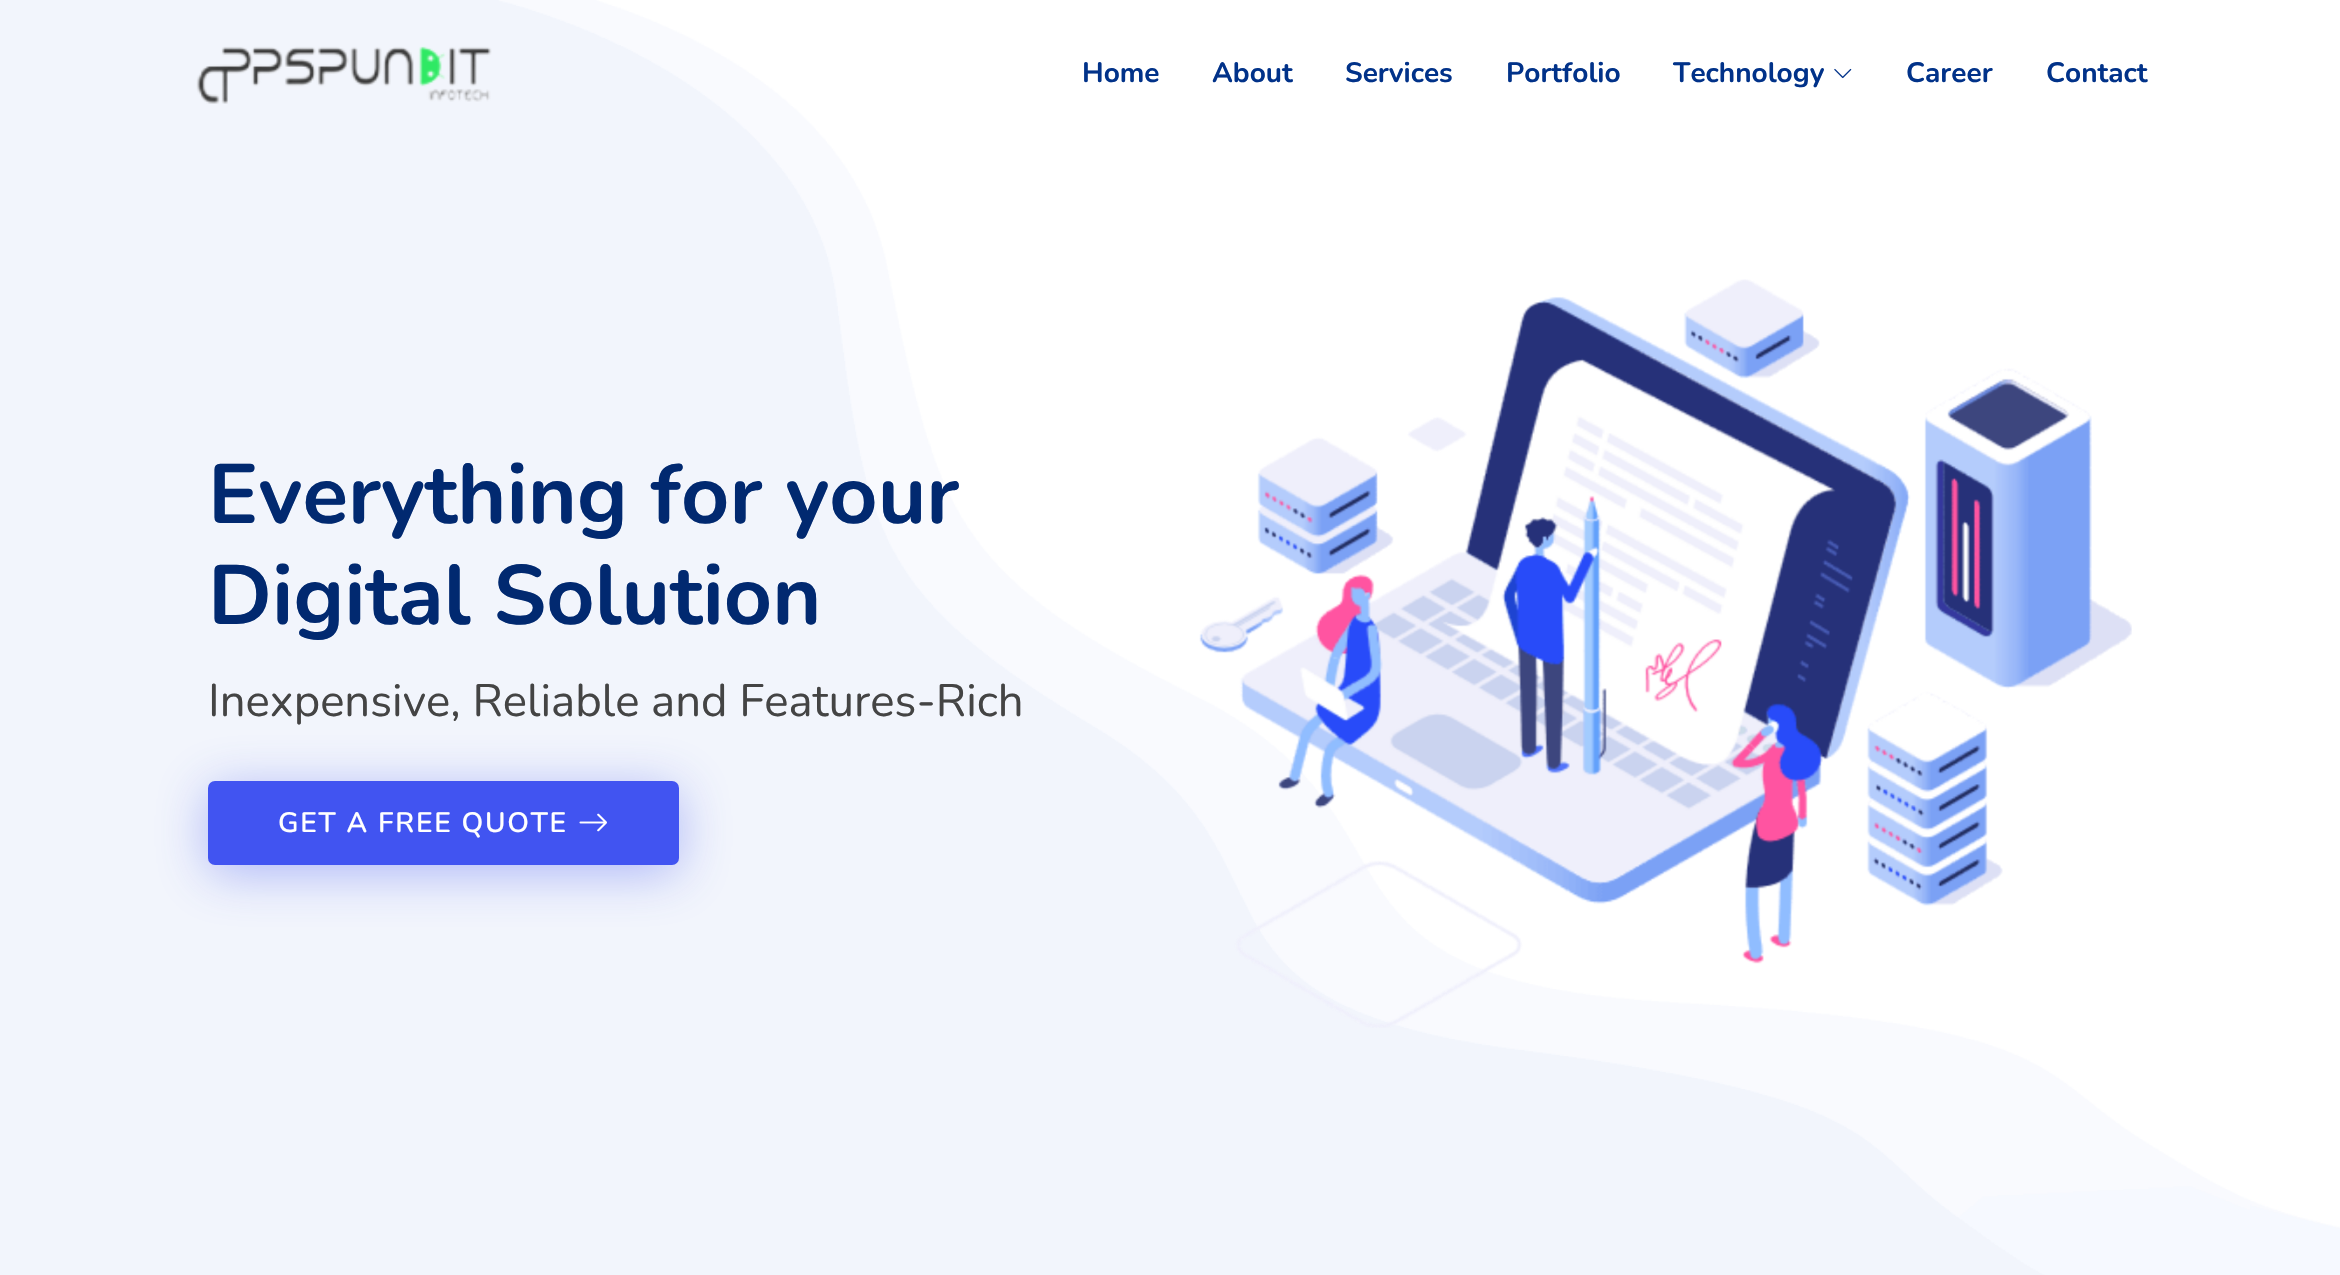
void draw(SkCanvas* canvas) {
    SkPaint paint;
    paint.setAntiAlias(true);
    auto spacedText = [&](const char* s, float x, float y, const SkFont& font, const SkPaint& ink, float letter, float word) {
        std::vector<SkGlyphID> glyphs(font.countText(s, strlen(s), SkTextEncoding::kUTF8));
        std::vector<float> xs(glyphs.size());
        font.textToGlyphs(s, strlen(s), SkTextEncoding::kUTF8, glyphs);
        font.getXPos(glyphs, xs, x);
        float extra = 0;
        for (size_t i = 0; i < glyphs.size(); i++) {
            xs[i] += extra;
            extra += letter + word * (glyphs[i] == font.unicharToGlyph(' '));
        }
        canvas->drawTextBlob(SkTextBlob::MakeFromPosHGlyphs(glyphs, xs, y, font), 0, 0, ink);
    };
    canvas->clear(0xFFFFFFFF);
    canvas->drawImageRect(SkImages::DeferredFromEncodedData(SkData::MakeFromFileName("img3.png")), SkRect::MakeXYWH(0, 0, 2340, 1275), SkSamplingOptions());
    canvas->drawImageRect(SkImages::DeferredFromEncodedData(SkData::MakeFromFileName("img1.png")), SkRect::MakeXYWH(196, 46, 296, 58), SkSamplingOptions());
    SkFont font1(fontMgr->matchFamilyStyle("Nunito", SkFontStyle::Bold()), 28);
    font1.setSubpixel(true);
    paint.setColor(0xFF013289);
    canvas->drawString("Home", 1082, 82, font1, paint);
    canvas->drawString("About", 1212, 82, font1, paint);
    canvas->drawString("Services", 1345, 82, font1, paint);
    canvas->drawString("Portfolio", 1506, 82, font1, paint);
    canvas->drawString("Technology", 1673, 82, font1, paint);
    canvas->drawImageRect(SkImages::DeferredFromEncodedData(SkData::MakeFromFileName("img2.png")), SkRect::MakeXYWH(1834, 68, 18, 11), SkSamplingOptions());
    canvas->drawString("Career", 1906, 82, font1, paint);
    canvas->drawString("Contact", 2046, 82, font1, paint);
    SkFont font2(fontMgr->matchFamilyStyle("Nunito", SkFontStyle::Bold()), 84);
    font2.setSubpixel(true);
    paint.setColor(0xFF012970);
    canvas->drawString("Everything for your", 208, 523, font2, paint);
    canvas->drawString("Digital Solution", 208, 624, font2, paint);
    SkFont font3(fontMgr->matchFamilyStyle("Nunito", SkFontStyle::Normal()), 45.5f);
    font3.setSubpixel(true);
    paint.setColor(0xFF444444);
    canvas->drawString("Inexpensive, Reliable and Features-Rich", 208, 716, font3, paint);
    paint.setColor(0x664154F1);
    paint.setMaskFilter(SkMaskFilter::MakeBlur(kNormal_SkBlurStyle, 26));
    canvas->drawRoundRect(SkRect::MakeXYWH(208, 789, 471, 84), 7, 7, paint);
    paint.setMaskFilter(nullptr);
    paint.setColor(0xFF4154F1);
    canvas->drawRoundRect(SkRect::MakeXYWH(208, 781, 471, 84), 7, 7, paint);
    SkFont font4(fontMgr->matchFamilyStyle("Nunito", SkFontStyle(600, SkFontStyle::kNormal_Width, SkFontStyle::kUpright_Slant)), 28);
    font4.setSubpixel(true);
    paint.setColor(0xFFFFFFFF);
    spacedText("GET A FREE QUOTE", 278, 832, font4, paint, 1.75f, 0);
    canvas->drawImageRect(SkImages::DeferredFromEncodedData(SkData::MakeFromFileName("img4.png")), SkRect::MakeXYWH(579, 813, 28, 19), SkSamplingOptions());
    canvas->drawImageRect(SkImages::DeferredFromEncodedData(SkData::MakeFromFileName("img5.png")), SkRect::MakeXYWH(1199, 279, 933, 749), SkSamplingOptions());
}
